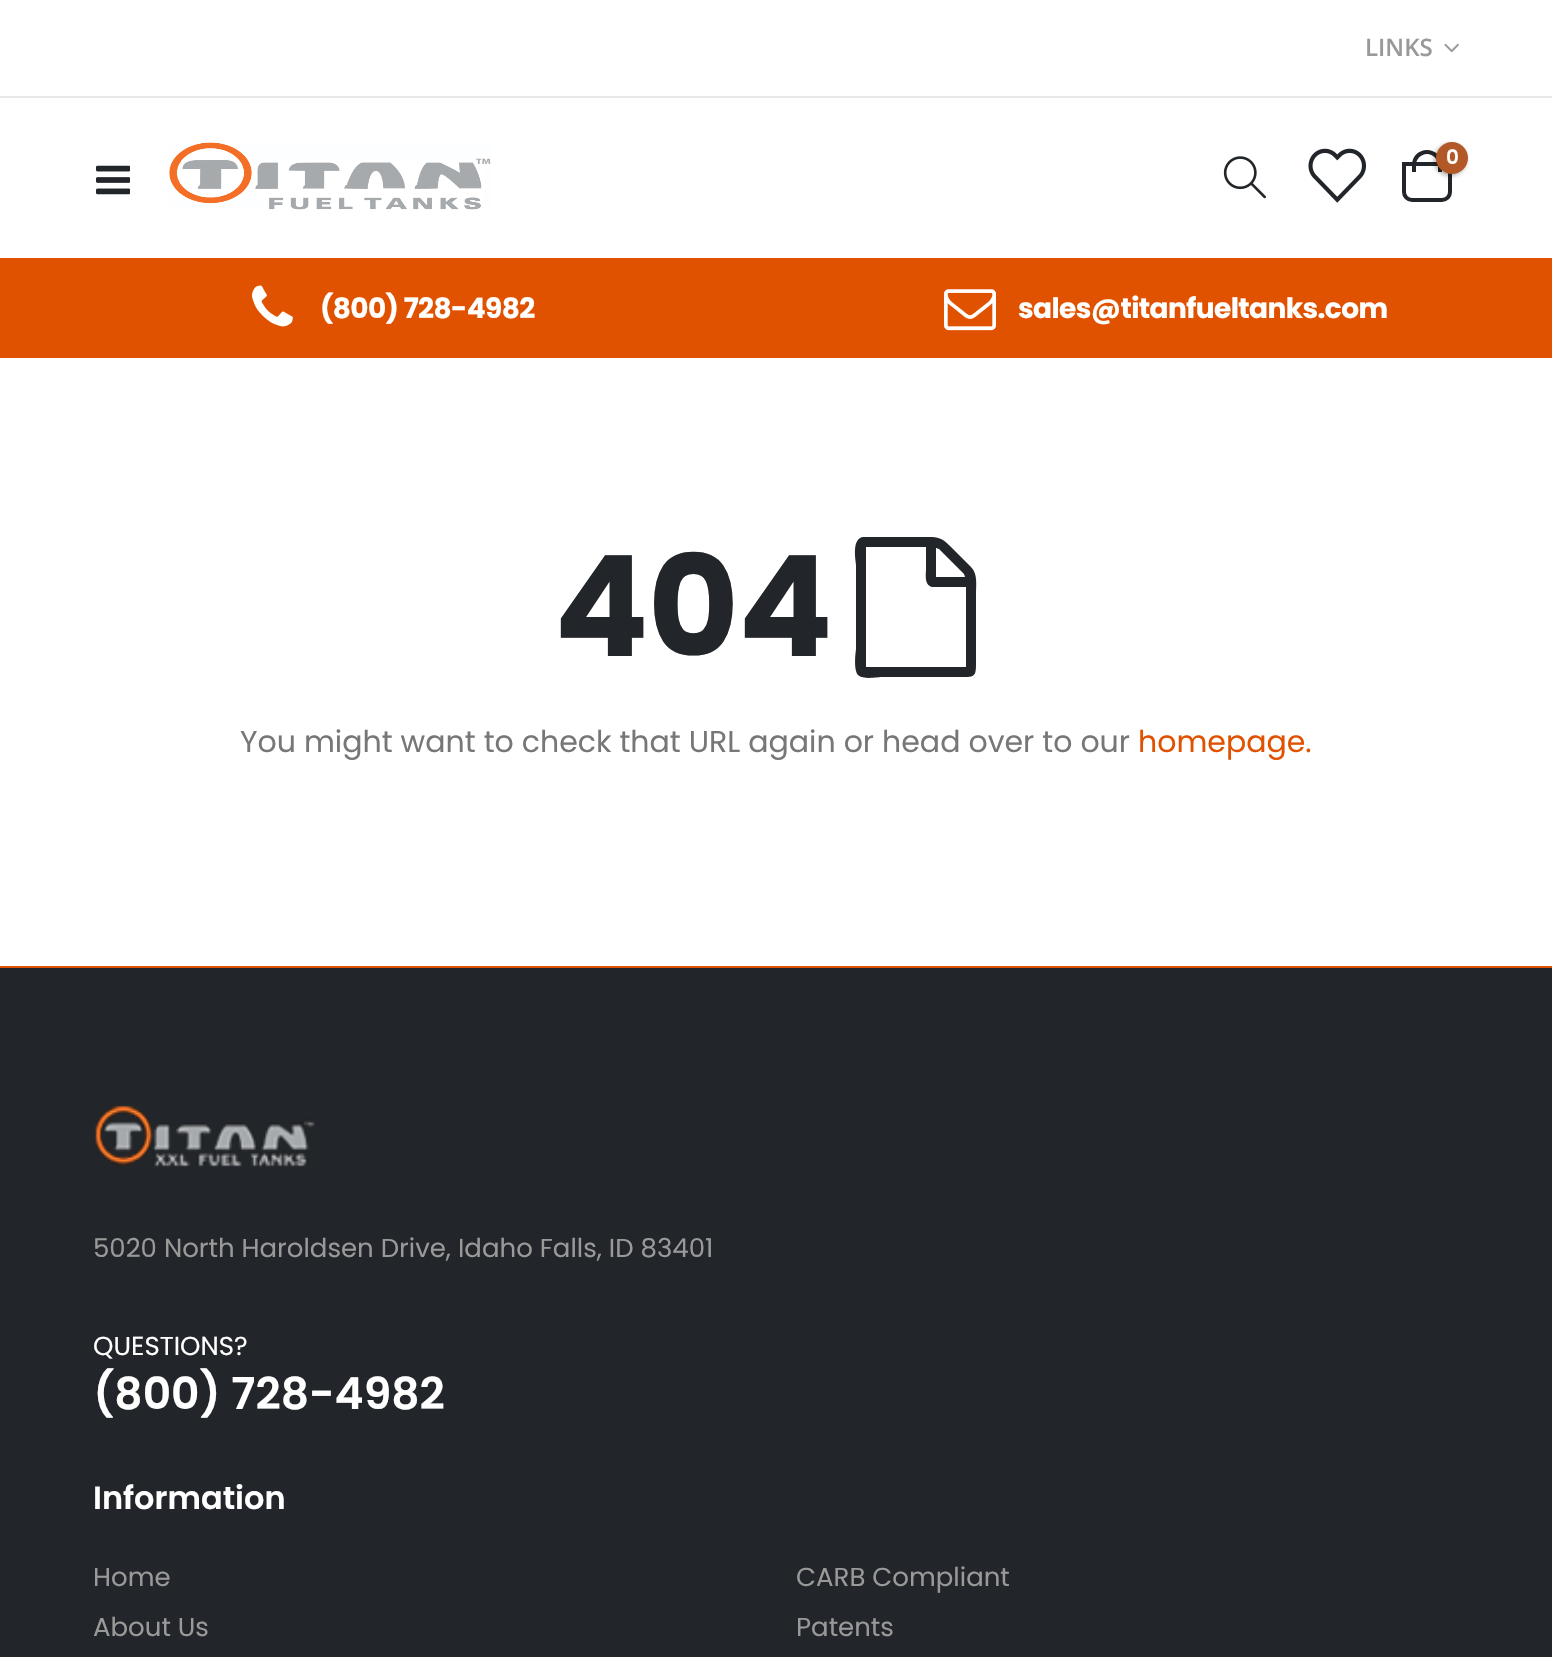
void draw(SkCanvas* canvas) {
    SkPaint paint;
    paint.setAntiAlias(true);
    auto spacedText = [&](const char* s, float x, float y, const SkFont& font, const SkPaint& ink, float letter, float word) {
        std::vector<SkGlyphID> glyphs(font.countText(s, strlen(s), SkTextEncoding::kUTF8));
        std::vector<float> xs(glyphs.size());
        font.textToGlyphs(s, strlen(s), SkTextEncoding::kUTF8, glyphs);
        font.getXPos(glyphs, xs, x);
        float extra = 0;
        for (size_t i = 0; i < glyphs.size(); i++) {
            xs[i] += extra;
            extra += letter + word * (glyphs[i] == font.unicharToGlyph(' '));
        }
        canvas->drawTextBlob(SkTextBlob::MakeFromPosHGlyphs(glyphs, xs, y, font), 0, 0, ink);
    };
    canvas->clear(0xFFFFFFFF);
    paint.setColor(0xFFE7E7E7);
    canvas->drawRect(SkRect::MakeXYWH(0, 96, 1552, 2), paint);
    SkFont font1(fontMgr->matchFamilyStyle("Open Sans", SkFontStyle(600, SkFontStyle::kNormal_Width, SkFontStyle::kUpright_Slant)), 24);
    font1.setSubpixel(true);
    paint.setColor(0xFF999999);
    canvas->drawString("LINKS", 1365, 56, font1, paint);
    canvas->drawImageRect(SkImages::DeferredFromEncodedData(SkData::MakeFromFileName("img1.png")), SkRect::MakeXYWH(1444, 43, 15, 10), SkSamplingOptions());
    canvas->drawImageRect(SkImages::DeferredFromEncodedData(SkData::MakeFromFileName("img2.png")), SkRect::MakeXYWH(96, 165, 34, 30), SkSamplingOptions());
    canvas->drawImageRect(SkImages::DeferredFromEncodedData(SkData::MakeFromFileName("img3.png")), SkRect::MakeXYWH(169, 142, 322, 68), SkSamplingOptions());
    canvas->drawImageRect(SkImages::DeferredFromEncodedData(SkData::MakeFromFileName("img4.png")), SkRect::MakeXYWH(1223, 156, 43, 43), SkSamplingOptions());
    canvas->drawImageRect(SkImages::DeferredFromEncodedData(SkData::MakeFromFileName("img5.png")), SkRect::MakeXYWH(1308, 148, 59, 55), SkSamplingOptions());
    paint.setStyle(SkPaint::kStroke_Style);
    paint.setStrokeWidth(4);
    paint.setColor(0xFF222529);
    canvas->drawPath(SkPathBuilder().moveTo(1404, 164).lineTo(1450, 164).lineTo(1450, 192).cubicTo(1450, 196.5f, 1446.5f, 200, 1442, 200).lineTo(1412, 200).cubicTo(1407.5f, 200, 1404, 196.5f, 1404, 192).close().detach(), paint);
    paint.setStyle(SkPaint::kFill_Style);
    canvas->drawPath(SkPathBuilder(SkPathFillType::kEvenOdd).moveTo(1427, 150).cubicTo(1435.5f, 150, 1442, 156.5f, 1442, 165).lineTo(1442, 172).lineTo(1412, 172).lineTo(1412, 165).cubicTo(1412, 156.5f, 1418.5f, 150, 1427, 150).close().moveTo(1427, 154).cubicTo(1433, 154, 1438, 159, 1438, 165).lineTo(1438, 172).lineTo(1416, 172).lineTo(1416, 165).cubicTo(1416, 159, 1421, 154, 1427, 154).close().detach(), paint);
    paint.setColor(0x4D000000);
    paint.setMaskFilter(SkMaskFilter::MakeBlur(kNormal_SkBlurStyle, 2));
    canvas->drawRoundRect(SkRect::MakeXYWH(1434, 144, 32, 32), 16, 16, paint);
    paint.setMaskFilter(nullptr);
    paint.setColor(0xFFB35827);
    canvas->drawCircle(1452, 158, 16, paint);
    SkFont font2(fontMgr->matchFamilyStyle("Poppins", SkFontStyle(600, SkFontStyle::kNormal_Width, SkFontStyle::kUpright_Slant)), 20);
    font2.setSubpixel(true);
    paint.setColor(0xFFFFFFFF);
    canvas->drawString("0", 1446, 164, font2, paint);
    paint.setColor(0xFFE05200);
    canvas->drawRect(SkRect::MakeXYWH(0, 258, 1552, 100), paint);
    canvas->drawImageRect(SkImages::DeferredFromEncodedData(SkData::MakeFromFileName("img6.png")), SkRect::MakeXYWH(252, 285, 41, 42), SkSamplingOptions());
    SkFont font3(fontMgr->matchFamilyStyle("Poppins", SkFontStyle::Bold()), 28);
    font3.setSubpixel(true);
    paint.setColor(0xFFFFFFFF);
    spacedText("(800) 728-4982", 320, 318, font3, paint, -0.6f, 0);
    canvas->drawImageRect(SkImages::DeferredFromEncodedData(SkData::MakeFromFileName("img7.png")), SkRect::MakeXYWH(944, 289, 52, 42), SkSamplingOptions());
    spacedText("sales@titanfueltanks.com", 1018, 318, font3, paint, -0.6f, 0);
    SkFont font4(fontMgr->matchFamilyStyle("Poppins", SkFontStyle::Bold()), 140);
    font4.setSubpixel(true);
    paint.setColor(0xFF222529);
    spacedText("404", 554, 656, font4, paint, -1, 0);
    canvas->drawPath(SkPathBuilder().moveTo(971, 567).cubicTo(978, 574, 976, 585, 976, 595).lineTo(976, 654).cubicTo(976, 680, 978, 677, 951, 677).lineTo(881, 677).cubicTo(879, 677, 863, 680, 858, 675).cubicTo(853, 669, 856, 650, 856, 649).lineTo(856, 565).cubicTo(856, 561, 851, 539, 863, 537).lineTo(922, 537).cubicTo(937, 537, 940, 536, 950, 546).close().moveTo(936, 548).lineTo(936, 577).lineTo(965, 577).lineTo(964, 574).lineTo(939, 549).close().moveTo(966, 667).lineTo(966, 587).lineTo(932, 587).cubicTo(924, 585, 926, 574, 926, 569).lineTo(926, 547).lineTo(866, 547).lineTo(866, 667).close().detach(), paint);
    SkFont font5(fontMgr->matchFamilyStyle("Poppins", SkFontStyle::Normal()), 30);
    font5.setSubpixel(true);
    paint.setColor(0xFF777777);
    canvas->drawString("You might want to check that URL again or head over to our", 240, 752, font5, paint);
    paint.setColor(0xFFE05200);
    canvas->drawString("homepage.", 1138, 752, font5, paint);
    canvas->drawRect(SkRect::MakeXYWH(0, 966, 1552, 2), paint);
    paint.setColor(0xFF222529);
    canvas->drawRect(SkRect::MakeXYWH(0, 968, 1552, 689), paint);
    canvas->drawImageRect(SkImages::DeferredFromEncodedData(SkData::MakeFromFileName("img8.png")), SkRect::MakeXYWH(95, 1105, 220, 62), SkSamplingOptions());
    SkFont font6(fontMgr->matchFamilyStyle("Poppins", SkFontStyle::Normal()), 26);
    font6.setSubpixel(true);
    paint.setColor(0xFF999999);
    canvas->drawString("5020 North Haroldsen Drive, Idaho Falls, ID 83401", 93, 1257, font6, paint);
    paint.setColor(0xFFFFFFFF);
    canvas->drawString("QUESTIONS?", 93, 1355, font6, paint);
    SkFont font7(fontMgr->matchFamilyStyle("Poppins", SkFontStyle(600, SkFontStyle::kNormal_Width, SkFontStyle::kUpright_Slant)), 44);
    font7.setSubpixel(true);
    canvas->drawString("(800) 728-4982", 93, 1409, font7, paint);
    SkFont font8(fontMgr->matchFamilyStyle("Poppins", SkFontStyle(600, SkFontStyle::kNormal_Width, SkFontStyle::kUpright_Slant)), 32);
    font8.setSubpixel(true);
    canvas->drawString("Information", 93, 1509, font8, paint);
    paint.setColor(0xFF999999);
    canvas->drawString("Home", 93, 1586, font6, paint);
    canvas->drawString("About Us", 93, 1636, font6, paint);
    canvas->drawString("CARB Compliant", 796, 1586, font6, paint);
    canvas->drawString("Patents", 796, 1636, font6, paint);
}
